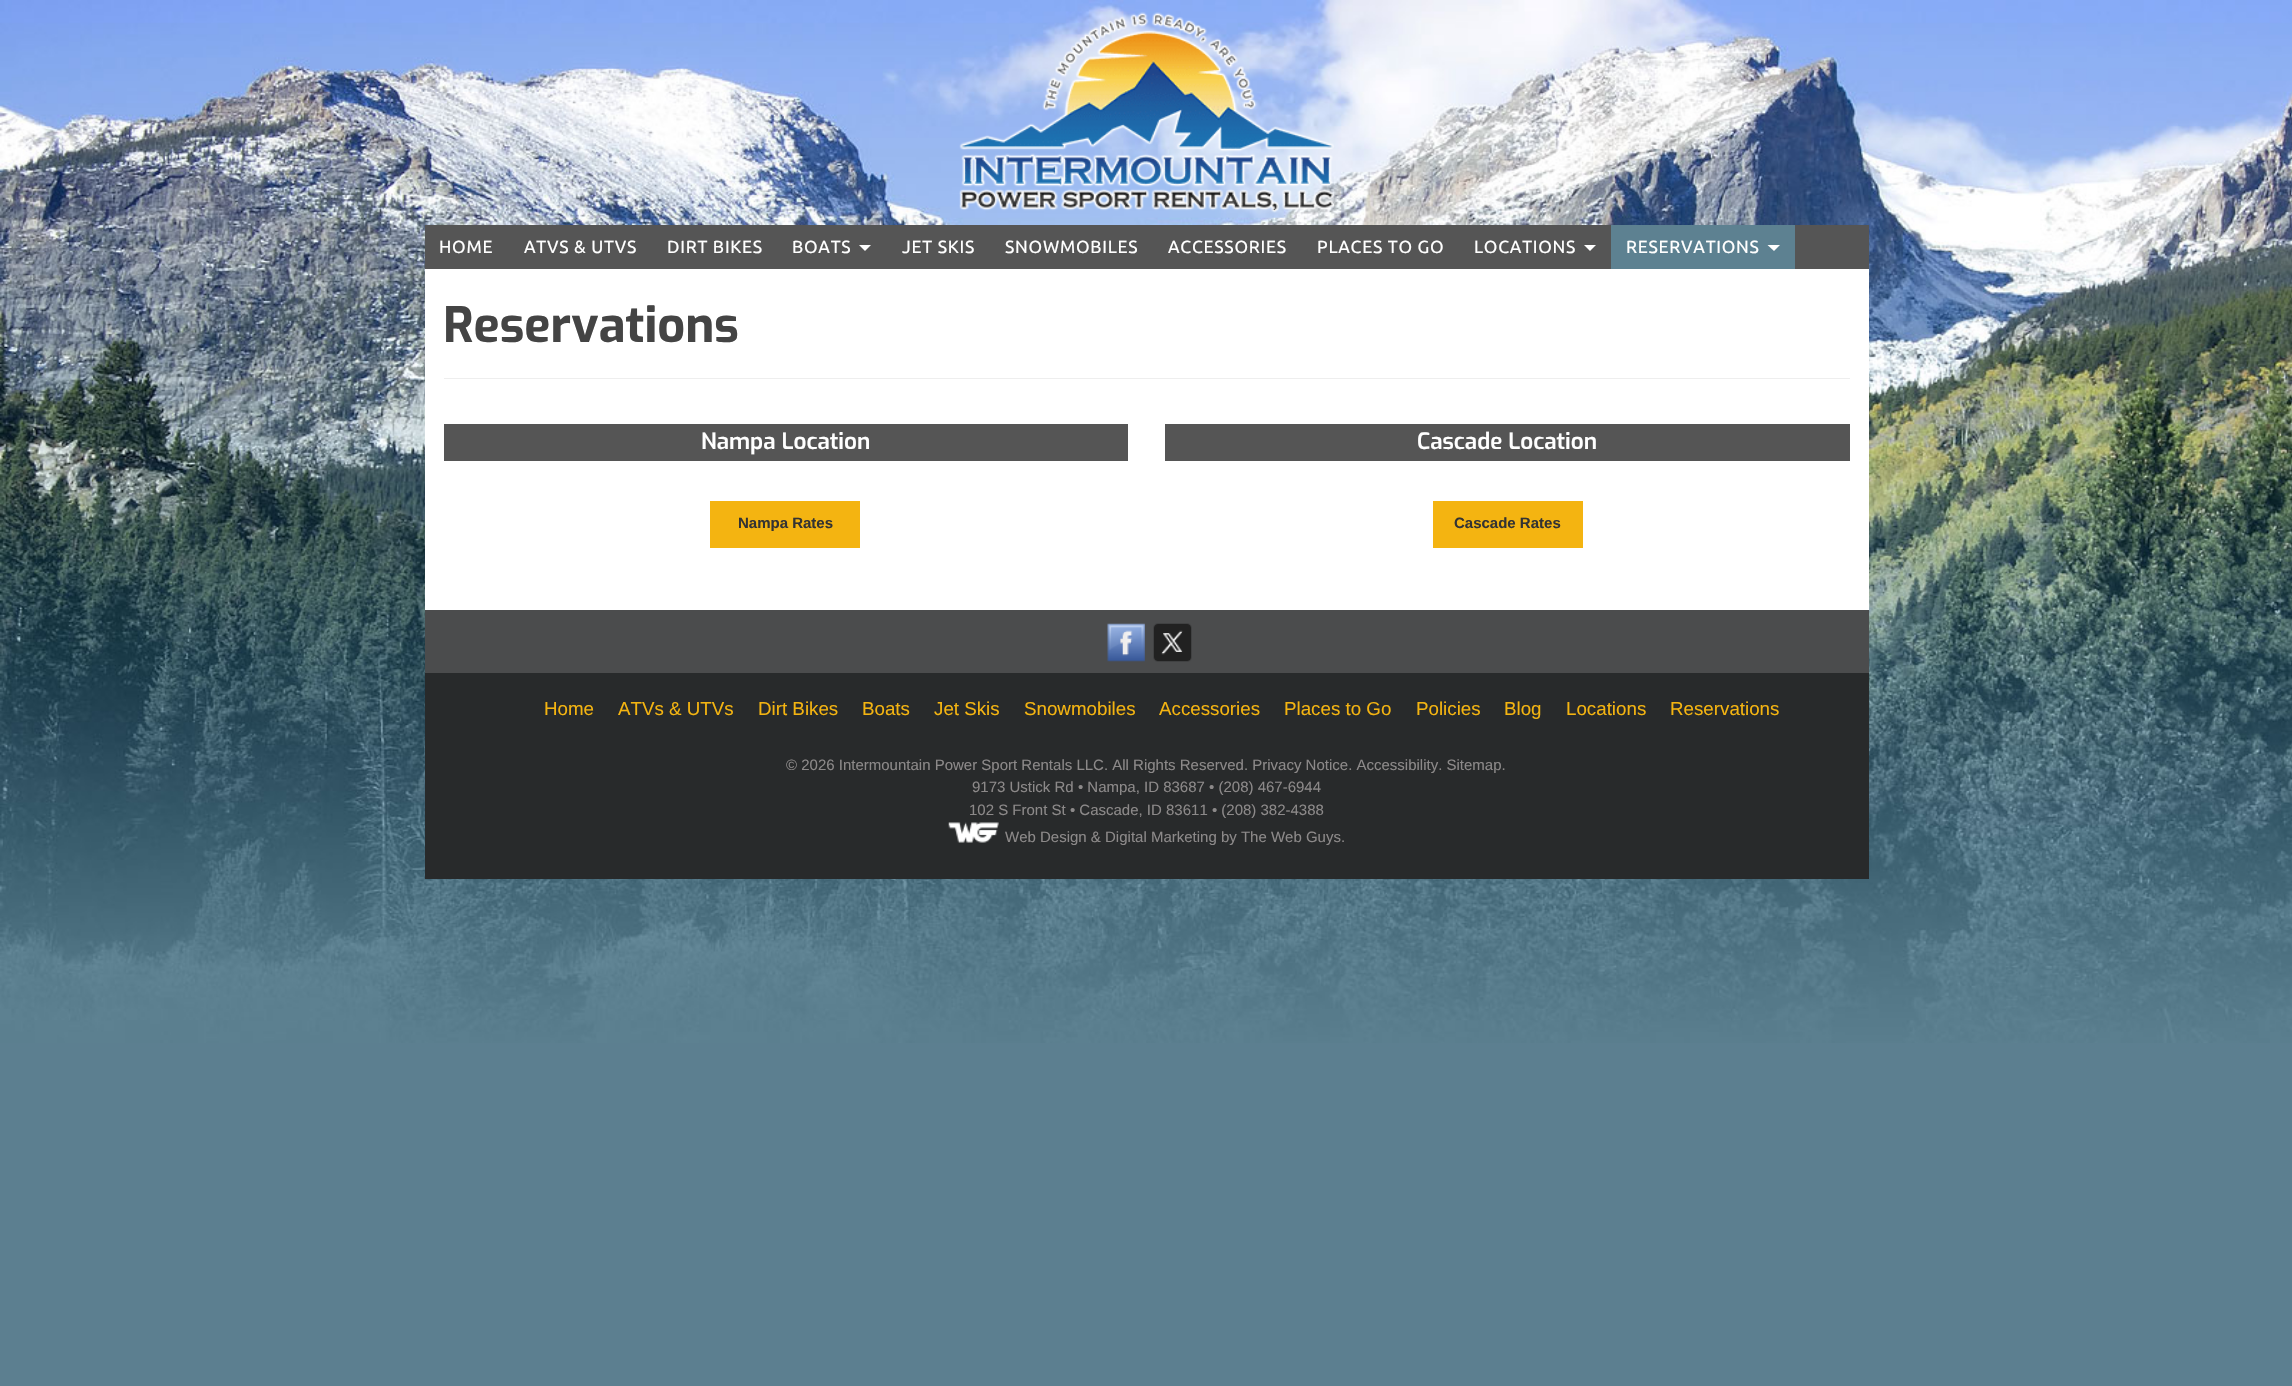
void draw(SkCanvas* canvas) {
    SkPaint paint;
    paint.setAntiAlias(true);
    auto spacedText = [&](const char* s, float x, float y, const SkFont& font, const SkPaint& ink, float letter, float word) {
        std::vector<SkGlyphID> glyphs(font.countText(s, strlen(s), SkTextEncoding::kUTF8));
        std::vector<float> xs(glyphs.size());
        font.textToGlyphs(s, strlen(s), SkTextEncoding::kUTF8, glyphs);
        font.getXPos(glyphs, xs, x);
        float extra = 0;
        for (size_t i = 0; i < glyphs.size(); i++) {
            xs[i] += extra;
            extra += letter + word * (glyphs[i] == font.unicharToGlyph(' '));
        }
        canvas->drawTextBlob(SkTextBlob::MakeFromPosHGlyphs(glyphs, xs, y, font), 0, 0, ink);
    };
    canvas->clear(0xFF5C7F90);
    canvas->drawImageRect(SkImages::DeferredFromEncodedData(SkData::MakeFromFileName("img1.png")), SkRect::MakeXYWH(0, 0, 2292, 1043), SkSamplingOptions());
    canvas->drawImageRect(SkImages::DeferredFromEncodedData(SkData::MakeFromFileName("img2.png")), SkRect::MakeXYWH(959, 12, 376, 201), SkSamplingOptions());
    paint.setColor(0xFF555555);
    canvas->drawRect(SkRect::MakeXYWH(425, 225, 1444, 44), paint);
    SkFont font1(fontMgr->matchFamilyStyle("Ubuntu", SkFontStyle::Normal()), 17.5f);
    font1.setSubpixel(true);
    paint.setColor(0xFFFFFFFF);
    spacedText("HOME", 439, 253, font1, paint, 0.75f, 0);
    spacedText("ATVS & UTVS", 524, 253, font1, paint, 0.75f, 0);
    spacedText("DIRT BIKES", 667, 253, font1, paint, 0.75f, 0);
    spacedText("BOATS", 792, 253, font1, paint, 0.75f, 0);
    canvas->drawPath(SkPathBuilder().moveTo(859, 245).lineTo(871, 245).lineTo(865, 251).close().detach(), paint);
    spacedText("JET SKIS", 902, 253, font1, paint, 0.75f, 0);
    spacedText("SNOWMOBILES", 1005, 253, font1, paint, 0.75f, 0);
    spacedText("ACCESSORIES", 1168, 253, font1, paint, 0.75f, 0);
    spacedText("PLACES TO GO", 1317, 253, font1, paint, 0.75f, 0);
    spacedText("LOCATIONS", 1474, 253, font1, paint, 0.75f, 0);
    canvas->drawPath(SkPathBuilder().moveTo(1584, 245).lineTo(1596, 245).lineTo(1590, 251).close().detach(), paint);
    paint.setColor(0xFF5D8191);
    canvas->drawRect(SkRect::MakeXYWH(1611, 225, 184, 44), paint);
    paint.setColor(0xFFFFFFFF);
    spacedText("RESERVATIONS", 1626, 253, font1, paint, 0.75f, 0);
    canvas->drawPath(SkPathBuilder().moveTo(1767.5f, 245).lineTo(1780, 245).lineTo(1774, 251).close().detach(), paint);
    canvas->drawRect(SkRect::MakeXYWH(425, 269, 1444, 341), paint);
    paint.setColor(0xFFEEEEEE);
    canvas->drawRect(SkRect::MakeXYWH(444, 378, 1406, 1), paint);
    SkFont font2(fontMgr->matchFamilyStyle("Exo", SkFontStyle::Bold()), 48.75f);
    font2.setSubpixel(true);
    paint.setColor(0xFF444444);
    canvas->drawString("Reservations", 443, 342, font2, paint);
    paint.setColor(0xFF555555);
    canvas->drawRect(SkRect::MakeXYWH(444, 424, 684, 37), paint);
    SkFont font3(fontMgr->matchFamilyStyle("Exo", SkFontStyle(600, SkFontStyle::kNormal_Width, SkFontStyle::kUpright_Slant)), 22.5f);
    font3.setSubpixel(true);
    paint.setColor(0xFFFFFFFF);
    canvas->drawString("Nampa Location", 701, 449, font3, paint);
    paint.setColor(0xFFF4B411);
    canvas->drawRect(SkRect::MakeXYWH(710, 501, 150, 47), paint);
    SkFont font4(fontMgr->matchFamilyStyle("Liberation Sans", SkFontStyle::Bold()), 15);
    font4.setSubpixel(true);
    paint.setColor(0xFF333333);
    canvas->drawString("Nampa Rates", 738, 528, font4, paint);
    paint.setColor(0xFF555555);
    canvas->drawRect(SkRect::MakeXYWH(1165, 424, 685, 37), paint);
    paint.setColor(0xFFFFFFFF);
    canvas->drawString("Cascade Location", 1417, 449, font3, paint);
    paint.setColor(0xFFF4B411);
    canvas->drawRect(SkRect::MakeXYWH(1433, 501, 150, 47), paint);
    paint.setColor(0xFF333333);
    canvas->drawString("Cascade Rates", 1454, 528, font4, paint);
    paint.setColor(0xFF4B4C4D);
    canvas->drawRect(SkRect::MakeXYWH(425, 610, 1444, 63), paint);
    canvas->drawImageRect(SkImages::DeferredFromEncodedData(SkData::MakeFromFileName("img3.png")), SkRect::MakeXYWH(1107, 623, 38, 39), SkSamplingOptions());
    canvas->drawImageRect(SkImages::DeferredFromEncodedData(SkData::MakeFromFileName("img4.png")), SkRect::MakeXYWH(1153, 623, 39, 39), SkSamplingOptions());
    paint.setColor(0xFF282A2B);
    canvas->drawRect(SkRect::MakeXYWH(425, 673, 1444, 206), paint);
    SkFont font5(fontMgr->matchFamilyStyle("Liberation Sans", SkFontStyle::Normal()), 18.75f);
    font5.setSubpixel(true);
    paint.setColor(0xFFF4B411);
    canvas->drawString("Home", 544, 715, font5, paint);
    canvas->drawString("ATVs & UTVs", 618, 715, font5, paint);
    canvas->drawString("Dirt Bikes", 758, 715, font5, paint);
    canvas->drawString("Boats", 862, 715, font5, paint);
    canvas->drawString("Jet Skis", 934, 715, font5, paint);
    canvas->drawString("Snowmobiles", 1024, 715, font5, paint);
    canvas->drawString("Accessories", 1159, 715, font5, paint);
    canvas->drawString("Places to Go", 1284, 715, font5, paint);
    canvas->drawString("Policies", 1416, 715, font5, paint);
    canvas->drawString("Blog", 1504, 715, font5, paint);
    canvas->drawString("Locations", 1566, 715, font5, paint);
    canvas->drawString("Reservations", 1670, 715, font5, paint);
    SkFont font6(fontMgr->matchFamilyStyle("Liberation Sans", SkFontStyle::Normal()), 15);
    font6.setSubpixel(true);
    paint.setColor(0xFF8C8989);
    canvas->drawString("© 2026 Intermountain Power Sport Rentals LLC. All Rights Reserved. Privacy Notice. Accessibility. Sitemap.", 786, 770, font6, paint);
    canvas->drawString("9173 Ustick Rd • Nampa, ID 83687 • (208) 467-6944", 972, 792, font6, paint);
    canvas->drawString("102 S Front St • Cascade, ID 83611 • (208) 382-4388", 969, 815, font6, paint);
    canvas->drawImageRect(SkImages::DeferredFromEncodedData(SkData::MakeFromFileName("img5.png")), SkRect::MakeXYWH(948, 822, 51, 21), SkSamplingOptions());
    canvas->drawString("Web Design & Digital Marketing by The Web Guys.", 1005, 842, font6, paint);
}
